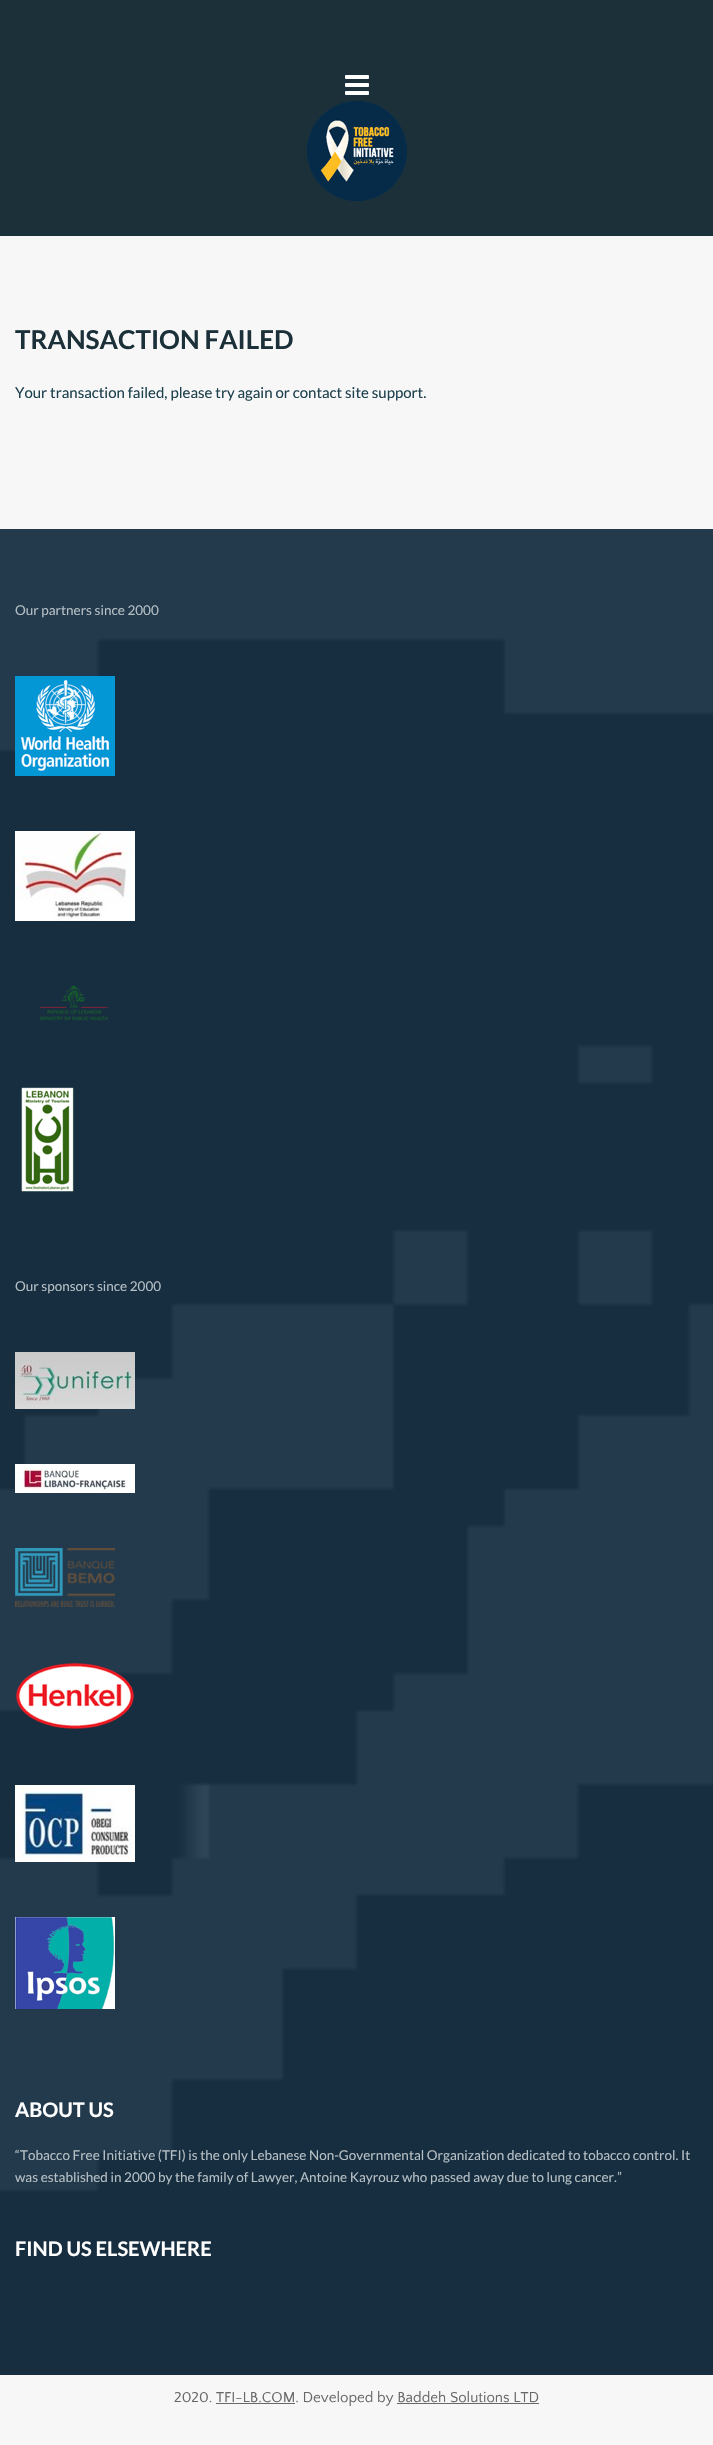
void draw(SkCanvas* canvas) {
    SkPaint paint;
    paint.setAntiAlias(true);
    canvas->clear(0xFFF7F7F7);
    paint.setColor(0xFF1B3039);
    canvas->drawRect(SkRect::MakeXYWH(0, 0, 713, 236), paint);
    canvas->drawImageRect(SkImages::DeferredFromEncodedData(SkData::MakeFromFileName("img1.png")), SkRect::MakeXYWH(345, 75, 24, 20), SkSamplingOptions());
    canvas->drawImageRect(SkImages::DeferredFromEncodedData(SkData::MakeFromFileName("img2.png")), SkRect::MakeXYWH(307, 101, 100, 100), SkSamplingOptions());
    SkFont font1(fontMgr->matchFamilyStyle("Lato", SkFontStyle::Bold()), 26);
    font1.setSubpixel(true);
    canvas->drawString("TRANSACTION FAILED", 15, 349, font1, paint);
    SkFont font2(fontMgr->matchFamilyStyle("Lato", SkFontStyle::Normal()), 15);
    font2.setSubpixel(true);
    paint.setColor(0xFF1E414E);
    canvas->drawString("Your transaction failed, please try again or contact site support.", 15, 398, font2, paint);
    canvas->drawImageRect(SkImages::DeferredFromEncodedData(SkData::MakeFromFileName("img3.png")), SkRect::MakeXYWH(0, 529, 713, 1846), SkSamplingOptions());
    SkFont font3(fontMgr->matchFamilyStyle("Lato", SkFontStyle::Normal()), 13.5f);
    font3.setSubpixel(true);
    paint.setColor(0xFFB5BFC4);
    canvas->drawString("Our partners since 2000", 15, 615, font3, paint);
    canvas->drawImageRect(SkImages::DeferredFromEncodedData(SkData::MakeFromFileName("img4.png")), SkRect::MakeXYWH(15, 676, 100, 100), SkSamplingOptions());
    canvas->drawImageRect(SkImages::DeferredFromEncodedData(SkData::MakeFromFileName("img5.png")), SkRect::MakeXYWH(15, 831, 120, 90), SkSamplingOptions());
    canvas->drawImageRect(SkImages::DeferredFromEncodedData(SkData::MakeFromFileName("img6.png")), SkRect::MakeXYWH(40, 985, 68, 36), SkSamplingOptions());
    canvas->drawImageRect(SkImages::DeferredFromEncodedData(SkData::MakeFromFileName("img7.png")), SkRect::MakeXYWH(21, 1087, 53, 105), SkSamplingOptions());
    canvas->drawString("Our sponsors since 2000", 15, 1291, font3, paint);
    canvas->drawImageRect(SkImages::DeferredFromEncodedData(SkData::MakeFromFileName("img8.png")), SkRect::MakeXYWH(15, 1352, 120, 57), SkSamplingOptions());
    canvas->drawImageRect(SkImages::DeferredFromEncodedData(SkData::MakeFromFileName("img9.png")), SkRect::MakeXYWH(15, 1464, 120, 29), SkSamplingOptions());
    canvas->drawImageRect(SkImages::DeferredFromEncodedData(SkData::MakeFromFileName("img10.png")), SkRect::MakeXYWH(15, 1548, 100, 59), SkSamplingOptions());
    canvas->drawImageRect(SkImages::DeferredFromEncodedData(SkData::MakeFromFileName("img11.png")), SkRect::MakeXYWH(15, 1662, 119, 67), SkSamplingOptions());
    canvas->drawImageRect(SkImages::DeferredFromEncodedData(SkData::MakeFromFileName("img12.png")), SkRect::MakeXYWH(15, 1785, 120, 77), SkSamplingOptions());
    canvas->drawImageRect(SkImages::DeferredFromEncodedData(SkData::MakeFromFileName("img13.png")), SkRect::MakeXYWH(15, 1917, 100, 92), SkSamplingOptions());
    SkFont font4(fontMgr->matchFamilyStyle("Lato", SkFontStyle::Bold()), 20);
    font4.setSubpixel(true);
    paint.setColor(0xFFFFFFFF);
    canvas->drawString("ABOUT US", 15, 2117, font4, paint);
    paint.setColor(0xFFB5BFC4);
    canvas->drawString("“Tobacco Free Initiative (TFI) is the only Lebanese Non-Governmental Organization dedicated to tobacco control. It", 15, 2160, font3, paint);
    canvas->drawString("was established in 2000 by the family of Lawyer, Antoine Kayrouz who passed away due to lung cancer.”", 15, 2182, font3, paint);
    paint.setColor(0xFFFFFFFF);
    canvas->drawString("FIND US ELSEWHERE", 15, 2256, font4, paint);
    SkFont font5(fontMgr->matchFamilyStyle("Quattrocento Sans", SkFontStyle::Normal()), 15);
    font5.setSubpixel(true);
    paint.setColor(0xFF686869);
    canvas->drawString("2020. TFI-LB.COM. Developed by Baddeh Solutions LTD", 174, 2402, font5, paint);
    canvas->drawRect(SkRect::MakeXYWH(216, 2403, 79, 1), paint);
    canvas->drawRect(SkRect::MakeXYWH(397, 2403, 142, 1), paint);
}
